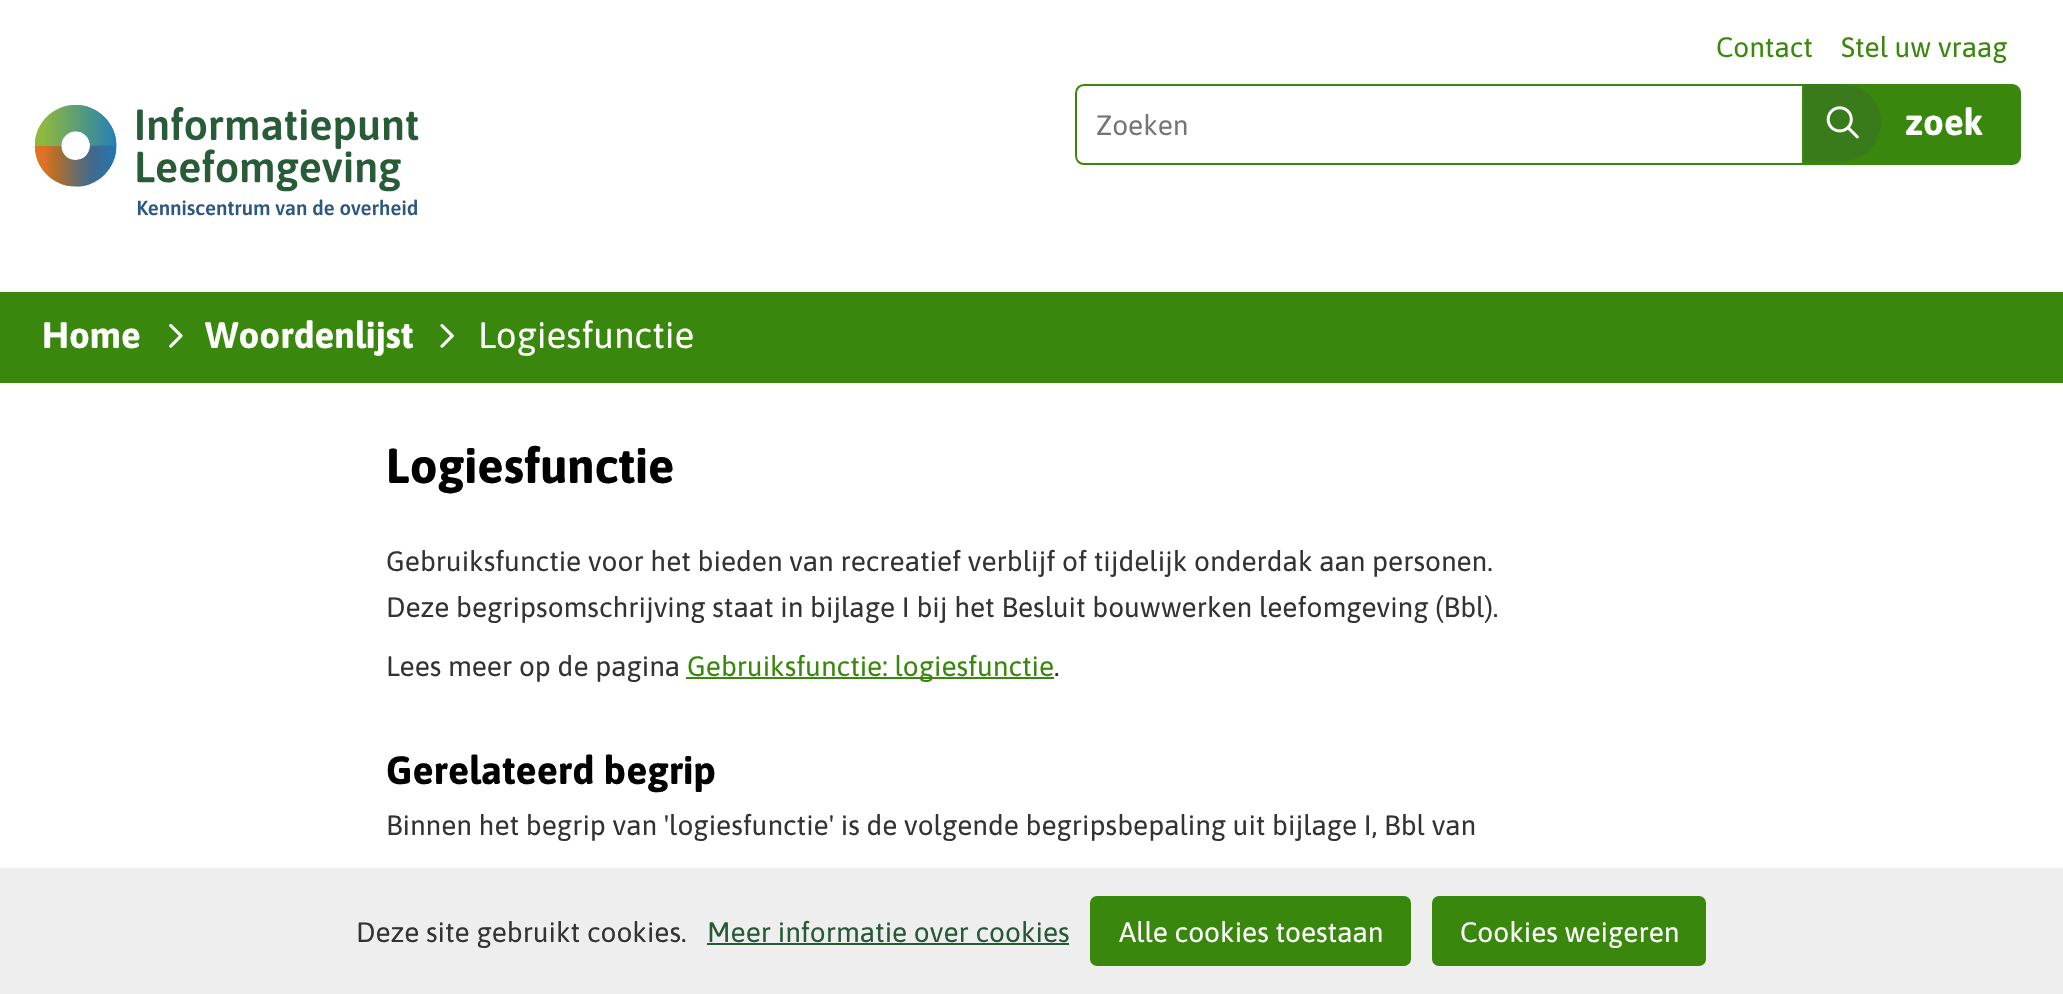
void draw(SkCanvas* canvas) {
    SkPaint paint;
    paint.setAntiAlias(true);
    canvas->clear(0xFFFFFFFF);
    SkFont font1(fontMgr->matchFamilyStyle("Asap", SkFontStyle::Normal()), 28);
    font1.setSubpixel(true);
    paint.setColor(0xFF39870C);
    canvas->drawString("Contact", 1716, 57, font1, paint);
    canvas->drawString("Stel uw vraag", 1841, 57, font1, paint);
    canvas->drawImageRect(SkImages::DeferredFromEncodedData(SkData::MakeFromFileName("img1.png")), SkRect::MakeXYWH(34, 105, 385, 111), SkSamplingOptions());
    paint.setStyle(SkPaint::kStroke_Style);
    paint.setStrokeWidth(2);
    canvas->drawPath(SkPathBuilder().moveTo(1084, 85).lineTo(1803, 85).lineTo(1803, 164).lineTo(1084, 164).cubicTo(1079.5f, 164, 1076, 160.5f, 1076, 156).lineTo(1076, 93).cubicTo(1076, 88.5f, 1079.5f, 85, 1084, 85).close().detach(), paint);
    paint.setStyle(SkPaint::kFill_Style);
    paint.setColor(0xFF757575);
    canvas->drawString("Zoeken", 1096, 135, font1, paint);
    paint.setColor(0xFF39870C);
    canvas->drawPath(SkPathBuilder().moveTo(1804, 84).lineTo(2012, 84).cubicTo(2017, 84, 2021, 88, 2021, 93).lineTo(2021, 156).cubicTo(2021, 161, 2017, 165, 2012, 165).lineTo(1804, 165).close().detach(), paint);
    paint.setColor(0xFF397B1A);
    canvas->drawPath(SkPathBuilder().moveTo(1804, 84).lineTo(1842.5f, 84).cubicTo(1864, 84, 1881, 101, 1881, 122.5f).cubicTo(1881, 144, 1864, 161, 1842.5f, 161).lineTo(1804, 161).close().detach(), paint);
    canvas->drawImageRect(SkImages::DeferredFromEncodedData(SkData::MakeFromFileName("img2.png")), SkRect::MakeXYWH(1826, 106, 33, 33), SkSamplingOptions());
    SkFont font2(fontMgr->matchFamilyStyle("Asap", SkFontStyle::Bold()), 36.75f);
    font2.setSubpixel(true);
    paint.setColor(0xFFFFFFFF);
    canvas->drawString("zoek", 1905, 135, font2, paint);
    paint.setColor(0xFF39870C);
    canvas->drawRect(SkRect::MakeXYWH(0, 292, 2063, 91), paint);
    paint.setColor(0xFFFFFFFF);
    canvas->drawString("Home", 42, 348, font2, paint);
    canvas->drawImageRect(SkImages::DeferredFromEncodedData(SkData::MakeFromFileName("img3.png")), SkRect::MakeXYWH(169, 324, 14, 24), SkSamplingOptions());
    canvas->drawString("Woordenlijst", 205, 348, font2, paint);
    canvas->drawImageRect(SkImages::DeferredFromEncodedData(SkData::MakeFromFileName("img4.png")), SkRect::MakeXYWH(440, 324, 14, 24), SkSamplingOptions());
    SkFont font3(fontMgr->matchFamilyStyle("Asap", SkFontStyle::Normal()), 36.75f);
    font3.setSubpixel(true);
    canvas->drawString("Logiesfunctie", 478, 348, font3, paint);
    SkFont font4(fontMgr->matchFamilyStyle("Asap", SkFontStyle::Bold()), 49);
    font4.setSubpixel(true);
    paint.setColor(0xFF000000);
    canvas->drawString("Logiesfunctie", 386, 483, font4, paint);
    paint.setColor(0xFF333333);
    canvas->drawString("Gebruiksfunctie voor het bieden van recreatief verblijf of tijdelijk onderdak aan personen.", 386, 571, font1, paint);
    canvas->drawString("Deze begripsomschrijving staat in bijlage I bij het Besluit bouwwerken leefomgeving (Bbl).", 386, 617, font1, paint);
    canvas->drawString("Lees meer op de pagina", 386, 676, font1, paint);
    paint.setColor(0xFF39870C);
    canvas->drawRect(SkRect::MakeXYWH(686, 677, 368, 2), paint);
    canvas->drawString("Gebruiksfunctie: logiesfunctie", 687, 676, font1, paint);
    paint.setColor(0xFF333333);
    canvas->drawString(".", 1054, 676, font1, paint);
    SkFont font5(fontMgr->matchFamilyStyle("Asap", SkFontStyle::Bold()), 39.25f);
    font5.setSubpixel(true);
    paint.setColor(0xFF000000);
    canvas->drawString("Gerelateerd begrip", 386, 784, font5, paint);
    paint.setColor(0xFF333333);
    canvas->drawString("Binnen het begrip van 'logiesfunctie' is de volgende begripsbepaling uit bijlage I, Bbl van", 386, 835, font1, paint);
    paint.setColor(0xFFEEEEEE);
    canvas->drawRect(SkRect::MakeXYWH(0, 868, 2063, 126), paint);
    paint.setColor(0xFF333333);
    canvas->drawString("Deze site gebruikt cookies.", 356, 942, font1, paint);
    paint.setColor(0xFF275937);
    canvas->drawString("Meer informatie over cookies", 707, 942, font1, paint);
    canvas->drawRect(SkRect::MakeXYWH(707, 943, 362, 2), paint);
    paint.setColor(0xFF39870C);
    canvas->drawRoundRect(SkRect::MakeXYWH(1090, 896, 321, 70), 7, 7, paint);
    paint.setColor(0xFFFFFFFF);
    canvas->drawString("Alle cookies toestaan", 1119, 942, font1, paint);
    paint.setColor(0xFF39870C);
    canvas->drawRoundRect(SkRect::MakeXYWH(1432, 896, 274, 70), 7, 7, paint);
    paint.setColor(0xFFFFFFFF);
    canvas->drawString("Cookies weigeren", 1460, 942, font1, paint);
}
